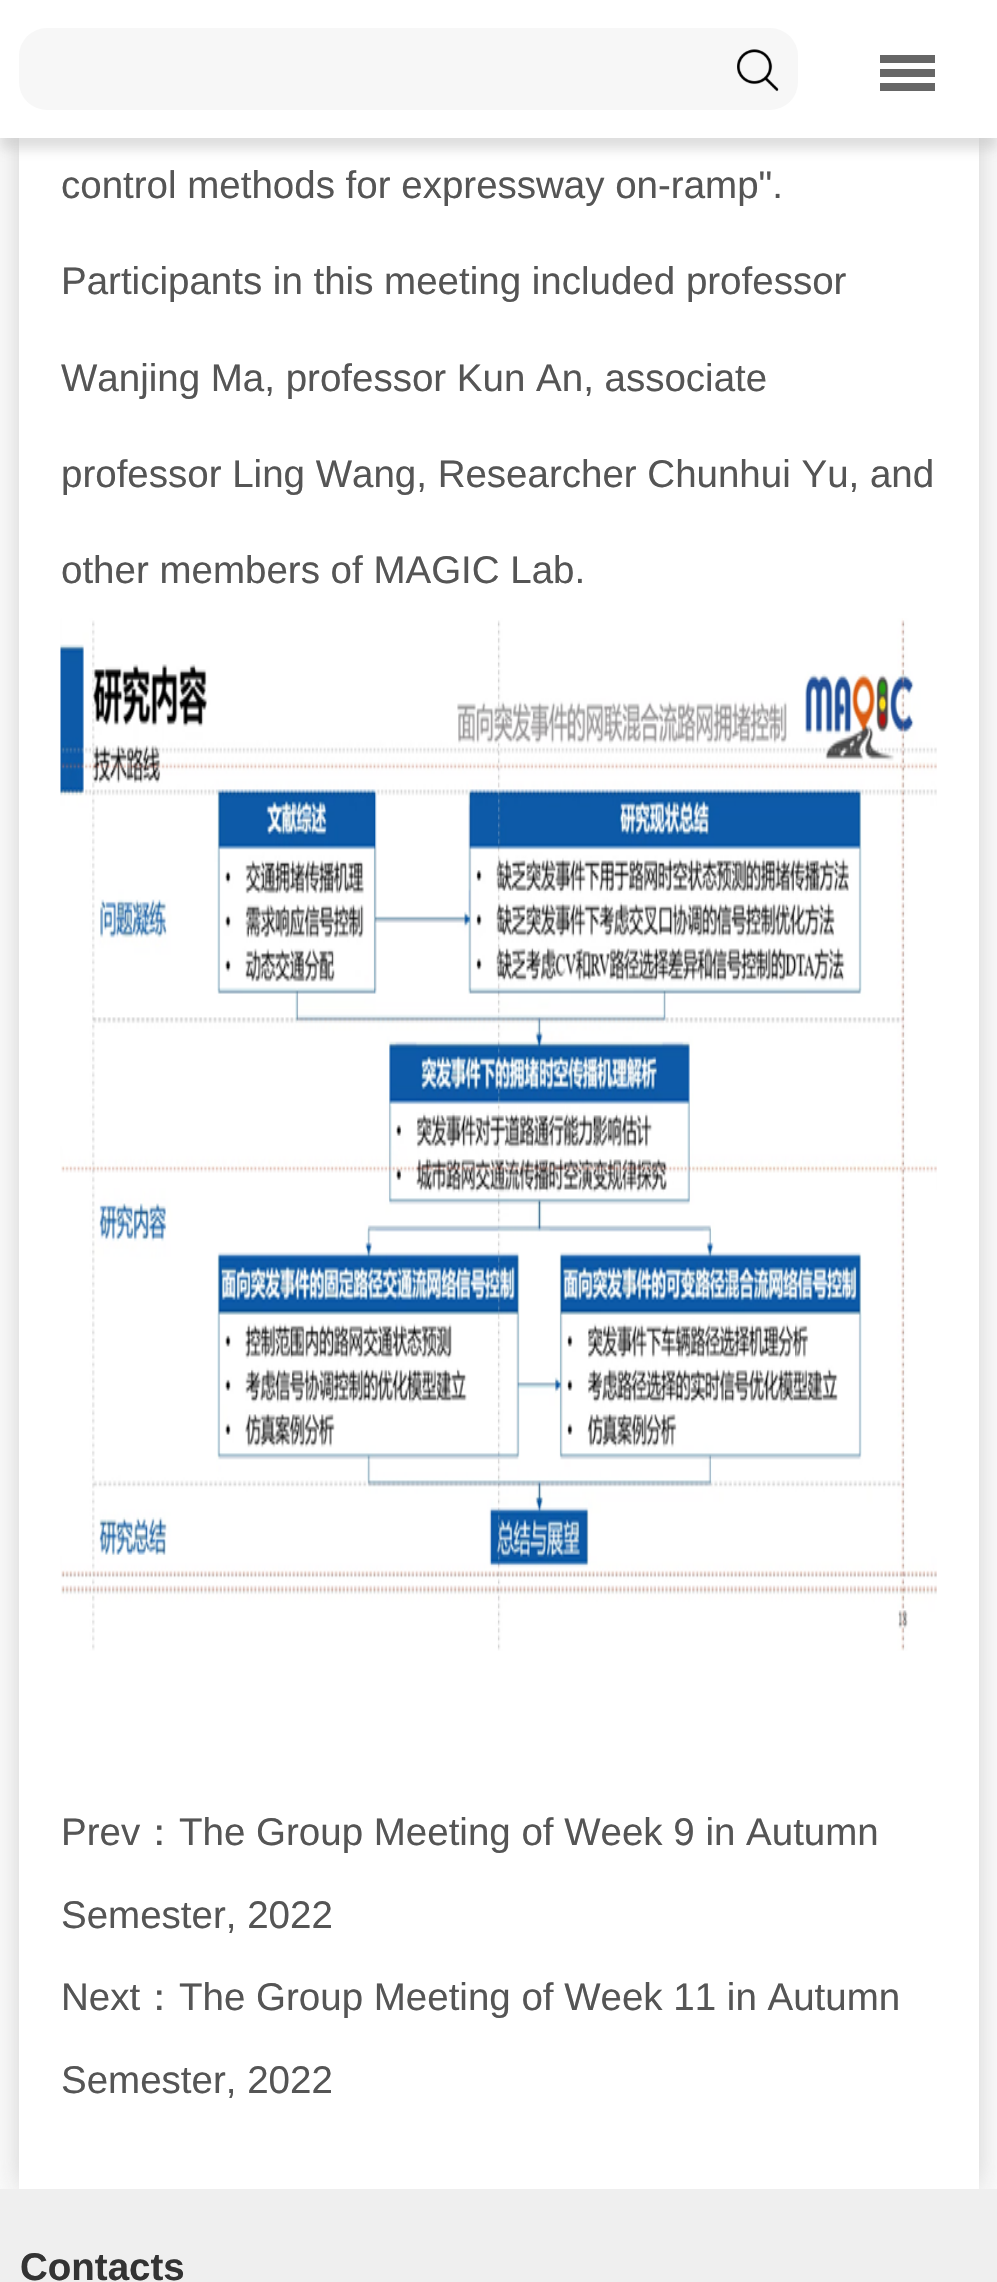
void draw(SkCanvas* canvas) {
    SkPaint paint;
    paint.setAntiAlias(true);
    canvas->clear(0xFFEFEFEF);
    paint.setColor(0xFFFBFBFB);
    canvas->drawRect(SkRect::MakeXYWH(0, 138, 997, 2051), paint);
    canvas->save();
    canvas->clipRect(SkRect::MakeXYWH(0, 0, 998, 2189));
    paint.setColor(0xBFC3C3C3);
    paint.setMaskFilter(SkMaskFilter::MakeBlur(kNormal_SkBlurStyle, 14));
    canvas->drawRect(SkRect::MakeXYWH(19, -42, 960, 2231), paint);
    paint.setMaskFilter(nullptr);
    canvas->restore();
    paint.setColor(0xFFFFFFFF);
    canvas->drawRect(SkRect::MakeXYWH(19, 138, 960, 2051), paint);
    paint.setColor(0x8CC3C3C3);
    paint.setMaskFilter(SkMaskFilter::MakeBlur(kNormal_SkBlurStyle, 5.5f));
    canvas->drawRect(SkRect::MakeXYWH(0, 11, 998, 138), paint);
    paint.setMaskFilter(nullptr);
    paint.setColor(0xFFFFFFFF);
    canvas->drawRect(SkRect::MakeXYWH(0, 0, 997, 138), paint);
    paint.setColor(0xFFF7F7F7);
    canvas->drawRoundRect(SkRect::MakeXYWH(19, 28, 779, 82), 28, 28, paint);
    canvas->drawImageRect(SkImages::DeferredFromEncodedData(SkData::MakeFromFileName("img1.png")), SkRect::MakeXYWH(737, 49, 42, 43), SkSamplingOptions());
    paint.setColor(0xFF666666);
    canvas->drawRect(SkRect::MakeXYWH(880, 55, 55, 8), paint);
    canvas->drawRect(SkRect::MakeXYWH(880, 69, 55, 8), paint);
    canvas->drawRect(SkRect::MakeXYWH(880, 83, 55, 8), paint);
    SkFont font1(fontMgr->matchFamilyStyle("Liberation Sans", SkFontStyle::Normal()), 38.5f);
    font1.setSubpixel(true);
    paint.setColor(0xFF555555);
    canvas->drawString("control methods for expressway on-ramp\".", 61, 198, font1, paint);
    canvas->drawString("Participants in this meeting included professor", 61, 294, font1, paint);
    canvas->drawString("Wanjing Ma, professor Kun An, associate", 61, 391, font1, paint);
    canvas->drawString("professor Ling Wang, Researcher Chunhui Yu, and", 61, 487, font1, paint);
    canvas->drawString("other members of MAGIC Lab.", 61, 583, font1, paint);
    canvas->drawImageRect(SkImages::DeferredFromEncodedData(SkData::MakeFromFileName("img2.png")), SkRect::MakeXYWH(60, 618, 877, 1033), SkSamplingOptions());
    canvas->drawString("Prev", 61, 1845, font1, paint);
    SkFont font2(fontMgr->matchFamilyStyle("WenQuanYi Zen Hei", SkFontStyle(500, SkFontStyle::kNormal_Width, SkFontStyle::kUpright_Slant)), 38.5f);
    font2.setSubpixel(true);
    canvas->drawString("：", 140, 1845, font2, paint);
    canvas->drawString("The Group Meeting of Week 9 in Autumn", 179, 1845, font1, paint);
    canvas->drawString("Semester, 2022", 61, 1928, font1, paint);
    canvas->drawString("Next", 61, 2010, font1, paint);
    canvas->drawString("：", 140, 2010, font2, paint);
    canvas->drawString("The Group Meeting of Week 11 in Autumn", 179, 2010, font1, paint);
    canvas->drawString("Semester, 2022", 61, 2093, font1, paint);
    SkFont font3(fontMgr->matchFamilyStyle("Liberation Sans", SkFontStyle::Bold()), 38.5f);
    font3.setSubpixel(true);
    paint.setColor(0xFF333333);
    canvas->drawString("Contacts", 20, 2280, font3, paint);
}
